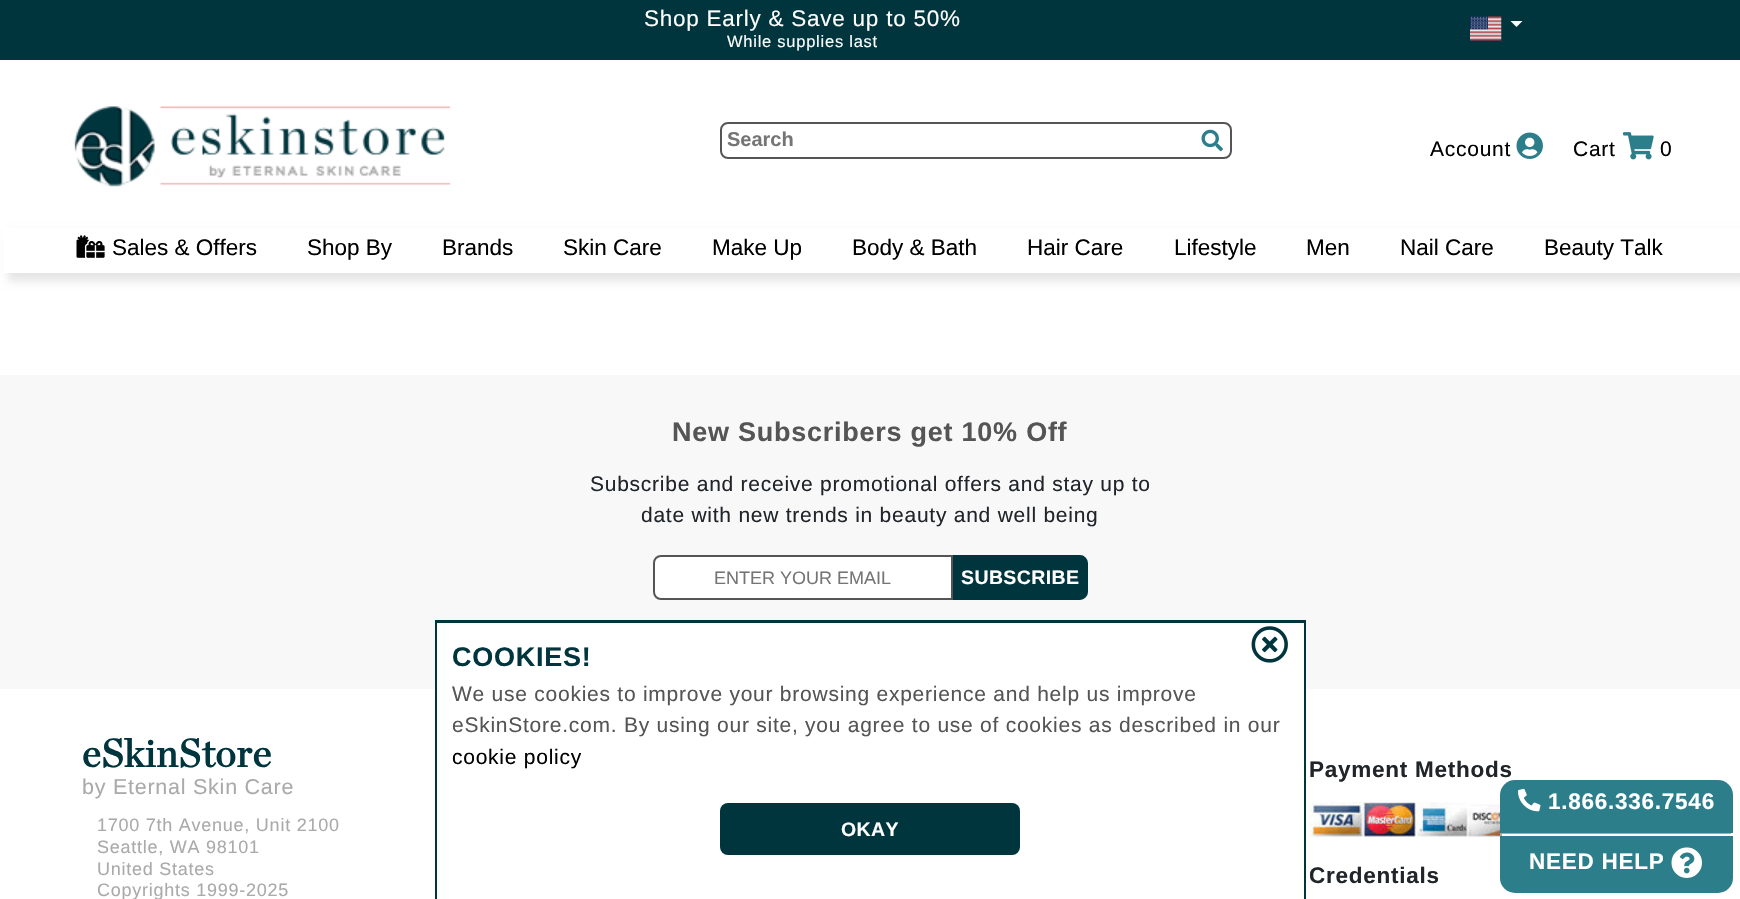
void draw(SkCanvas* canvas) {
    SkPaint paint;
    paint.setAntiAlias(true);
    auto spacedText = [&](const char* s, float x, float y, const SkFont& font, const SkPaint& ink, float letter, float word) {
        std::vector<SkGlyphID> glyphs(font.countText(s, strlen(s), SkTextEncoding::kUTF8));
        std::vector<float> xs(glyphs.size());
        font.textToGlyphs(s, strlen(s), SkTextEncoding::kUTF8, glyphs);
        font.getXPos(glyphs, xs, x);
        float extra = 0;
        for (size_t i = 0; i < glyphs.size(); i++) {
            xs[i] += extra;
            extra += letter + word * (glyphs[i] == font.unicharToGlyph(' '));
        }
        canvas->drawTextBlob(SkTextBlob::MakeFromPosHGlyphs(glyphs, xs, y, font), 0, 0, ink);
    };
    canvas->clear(0xFFFFFFFF);
    paint.setColor(0xFF00353D);
    canvas->drawRect(SkRect::MakeXYWH(0, 0, 1740, 60), paint);
    SkFont font1(fontMgr->matchFamilyStyle("Liberation Sans", SkFontStyle::Normal()), 22.5f);
    font1.setSubpixel(true);
    paint.setColor(0xFFFFFFFF);
    spacedText("Shop Early & Save up to 50%", 644, 26, font1, paint, 0.75f, 0);
    SkFont font2(fontMgr->matchFamilyStyle("Liberation Sans", SkFontStyle::Normal()), 16.5f);
    font2.setSubpixel(true);
    spacedText("While supplies last", 727, 47, font2, paint, 0.75f, 0);
    canvas->drawImageRect(SkImages::DeferredFromEncodedData(SkData::MakeFromFileName("img1.png")), SkRect::MakeXYWH(1470, 16, 32, 25), SkSamplingOptions());
    canvas->drawPath(SkPathBuilder().moveTo(1510.5f, 21).lineTo(1522.5f, 21).lineTo(1516.5f, 27).close().detach(), paint);
    canvas->drawImageRect(SkImages::DeferredFromEncodedData(SkData::MakeFromFileName("img2.png")), SkRect::MakeXYWH(74, 106, 377, 81), SkSamplingOptions());
    paint.setStyle(SkPaint::kStroke_Style);
    paint.setStrokeWidth(2);
    paint.setColor(0xFF555555);
    canvas->drawRoundRect(SkRect::MakeXYWH(721, 123, 510, 35), 7, 7, paint);
    SkFont font3(fontMgr->matchFamilyStyle("Liberation Sans", SkFontStyle::Bold()), 20);
    font3.setSubpixel(true);
    paint.setStyle(SkPaint::kFill_Style);
    paint.setColor(0xFF757575);
    canvas->drawString("Search", 727, 146, font3, paint);
    canvas->drawImageRect(SkImages::DeferredFromEncodedData(SkData::MakeFromFileName("img3.png")), SkRect::MakeXYWH(1201, 129, 22, 23), SkSamplingOptions());
    SkFont font4(fontMgr->matchFamilyStyle("Liberation Sans", SkFontStyle::Normal()), 21);
    font4.setSubpixel(true);
    paint.setColor(0xFF000000);
    spacedText("Account", 1430, 156, font4, paint, 0.75f, 0);
    canvas->drawImageRect(SkImages::DeferredFromEncodedData(SkData::MakeFromFileName("img4.png")), SkRect::MakeXYWH(1516, 132, 27, 27), SkSamplingOptions());
    spacedText("Cart", 1573, 156, font4, paint, 0.75f, 0);
    canvas->drawImageRect(SkImages::DeferredFromEncodedData(SkData::MakeFromFileName("img5.png")), SkRect::MakeXYWH(1623, 132, 31, 28), SkSamplingOptions());
    spacedText("0", 1660, 156, font4, paint, 0.75f, 0);
    paint.setColor(0x1A000000);
    paint.setMaskFilter(SkMaskFilter::MakeBlur(kNormal_SkBlurStyle, 4));
    canvas->drawRect(SkRect::MakeXYWH(8, 233, 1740, 48), paint);
    paint.setMaskFilter(nullptr);
    paint.setColor(0xFFFFFFFF);
    canvas->drawRect(SkRect::MakeXYWH(3, 228, 1737, 45), paint);
    canvas->drawImageRect(SkImages::DeferredFromEncodedData(SkData::MakeFromFileName("img6.png")), SkRect::MakeXYWH(76, 235, 29, 23), SkSamplingOptions());
    paint.setColor(0xFF000000);
    canvas->drawString("Sales & Offers", 112, 255, font1, paint);
    canvas->drawString("Shop By", 307, 255, font1, paint);
    canvas->drawString("Brands", 442, 255, font1, paint);
    canvas->drawString("Skin Care", 563, 255, font1, paint);
    canvas->drawString("Make Up", 712, 255, font1, paint);
    canvas->drawString("Body & Bath", 852, 255, font1, paint);
    canvas->drawString("Hair Care", 1027, 255, font1, paint);
    canvas->drawString("Lifestyle", 1174, 255, font1, paint);
    canvas->drawString("Men", 1306, 255, font1, paint);
    canvas->drawString("Nail Care", 1400, 255, font1, paint);
    canvas->drawString("Beauty Talk", 1544, 255, font1, paint);
    paint.setColor(0xFFF8F8F8);
    canvas->drawRect(SkRect::MakeXYWH(0, 375, 1740, 314), paint);
    SkFont font5(fontMgr->matchFamilyStyle("Liberation Sans", SkFontStyle::Bold()), 27);
    font5.setSubpixel(true);
    paint.setColor(0xFF555555);
    spacedText("New Subscribers get 10% Off", 672, 441, font5, paint, 0.75f, 0);
    paint.setColor(0xFF212529);
    spacedText("Subscribe and receive promotional offers and stay up to", 590, 491, font4, paint, 0.75f, 0);
    spacedText("date with new trends in beauty and well being", 641, 522, font4, paint, 0.75f, 0);
    paint.setColor(0xFFFFFFFF);
    canvas->drawPath(SkPathBuilder().moveTo(661, 556).lineTo(952, 556).lineTo(952, 599).lineTo(661, 599).cubicTo(657, 599, 654, 596, 654, 592).lineTo(654, 563).cubicTo(654, 559, 657, 556, 661, 556).close().detach(), paint);
    paint.setStyle(SkPaint::kStroke_Style);
    paint.setColor(0xFF555555);
    canvas->drawPath(SkPathBuilder().moveTo(661, 556).lineTo(952, 556).lineTo(952, 599).lineTo(661, 599).cubicTo(657, 599, 654, 596, 654, 592).lineTo(654, 563).cubicTo(654, 559, 657, 556, 661, 556).close().detach(), paint);
    SkFont font6(fontMgr->matchFamilyStyle("Liberation Sans", SkFontStyle::Normal()), 18);
    font6.setSubpixel(true);
    paint.setStyle(SkPaint::kFill_Style);
    paint.setColor(0xFF757575);
    canvas->drawString("ENTER YOUR EMAIL", 714, 584, font6, paint);
    paint.setColor(0xFF00353D);
    canvas->drawPath(SkPathBuilder().moveTo(954.5f, 556.5f).lineTo(1080, 556.5f).cubicTo(1083.5f, 556.5f, 1086.5f, 559.5f, 1086.5f, 563).lineTo(1086.5f, 592).cubicTo(1086.5f, 595.5f, 1083.5f, 598.5f, 1080, 598.5f).lineTo(954.5f, 598.5f).close().detach(), paint);
    paint.setStyle(SkPaint::kStroke_Style);
    paint.setStrokeWidth(3);
    canvas->drawPath(SkPathBuilder().moveTo(954.5f, 556.5f).lineTo(1080, 556.5f).cubicTo(1083.5f, 556.5f, 1086.5f, 559.5f, 1086.5f, 563).lineTo(1086.5f, 592).cubicTo(1086.5f, 595.5f, 1083.5f, 598.5f, 1080, 598.5f).lineTo(954.5f, 598.5f).close().detach(), paint);
    SkFont font7(fontMgr->matchFamilyStyle("Liberation Sans", SkFontStyle::Bold()), 19.5f);
    font7.setSubpixel(true);
    paint.setStyle(SkPaint::kFill_Style);
    paint.setColor(0xFFFFFFFF);
    spacedText("SUBSCRIBE", 961, 584, font7, paint, 0.4f, 0);
    SkFont font8(fontMgr->matchFamilyStyle("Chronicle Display", SkFontStyle::Bold()), 39);
    font8.setSubpixel(true);
    paint.setColor(0xFF00353D);
    spacedText("eSkinStore", 82, 767, font8, paint, 0.75f, 0);
    SkFont font9(fontMgr->matchFamilyStyle("Liberation Sans", SkFontStyle::Normal()), 21.5f);
    font9.setSubpixel(true);
    paint.setColor(0xFFAAAAAA);
    spacedText("by Eternal Skin Care", 82, 794, font9, paint, 0.75f, 0);
    spacedText("1700 7th Avenue, Unit 2100", 97, 831, font6, paint, 0.75f, 0);
    spacedText("Seattle, WA 98101", 97, 853, font6, paint, 0.75f, 0);
    spacedText("United States", 97, 875, font6, paint, 0.75f, 0);
    spacedText("Copyrights 1999-2025", 97, 896, font6, paint, 0.75f, 0);
    SkFont font10(fontMgr->matchFamilyStyle("Liberation Sans", SkFontStyle::Bold()), 22.5f);
    font10.setSubpixel(true);
    paint.setColor(0xFF212529);
    spacedText("Payment Methods", 1309, 777, font10, paint, 0.75f, 0);
    canvas->drawImageRect(SkImages::DeferredFromEncodedData(SkData::MakeFromFileName("img7.png")), SkRect::MakeXYWH(1309, 802, 191, 36), SkSamplingOptions());
    spacedText("Credentials", 1309, 883, font10, paint, 0.75f, 0);
    paint.setColor(0xFFFFFFFF);
    canvas->drawRect(SkRect::MakeXYWH(437, 623, 867, 66), paint);
    paint.setColor(0xFF00353D);
    canvas->drawRect(SkRect::MakeXYWH(435, 620, 870, 3), paint);
    canvas->drawRect(SkRect::MakeXYWH(1304, 620, 2, 279), paint);
    canvas->drawRect(SkRect::MakeXYWH(435, 620, 2, 279), paint);
    canvas->drawImageRect(SkImages::DeferredFromEncodedData(SkData::MakeFromFileName("img8.png")), SkRect::MakeXYWH(1251, 626, 37, 37), SkSamplingOptions());
    spacedText("COOKIES!", 452, 666, font5, paint, 0.75f, 0);
    paint.setColor(0xFF555555);
    spacedText("We use cookies to improve your browsing experience and help us improve", 452, 701, font4, paint, 0.75f, 0);
    spacedText("eSkinStore.com. By using our site, you agree to use of cookies as described in our", 452, 732, font4, paint, 0.75f, 0);
    paint.setColor(0xFF000000);
    spacedText("cookie policy", 452, 764, font4, paint, 0.75f, 0);
    paint.setColor(0xFF00353D);
    canvas->drawRoundRect(SkRect::MakeXYWH(720, 803, 300, 52), 8, 8, paint);
    paint.setColor(0xFFFFFFFF);
    spacedText("OKAY", 841, 836, font7, paint, 0.4f, 0);
    paint.setColor(0xFF2B7E8A);
    canvas->drawRoundRect(SkRect::MakeXYWH(1500, 780, 233, 113), 15, 15, paint);
    canvas->drawImageRect(SkImages::DeferredFromEncodedData(SkData::MakeFromFileName("img9.png")), SkRect::MakeXYWH(1518, 788, 23, 24), SkSamplingOptions());
    paint.setColor(0xFFFFFFFF);
    spacedText("1.866.336.7546", 1548, 809, font10, paint, 0.75f, 0);
    paint.setColor(0xFFAAAAAA);
    canvas->drawRect(SkRect::MakeXYWH(1500, 833, 233, 1), paint);
    paint.setColor(0xFFFFFFFF);
    canvas->drawRect(SkRect::MakeXYWH(1731, 833, 2, 3), paint);
    canvas->drawRect(SkRect::MakeXYWH(1500, 834, 233, 2), paint);
    paint.setColor(0xFFAAAAAA);
    canvas->drawRect(SkRect::MakeXYWH(1500, 833, 2, 3), paint);
    paint.setColor(0xFFFFFFFF);
    spacedText("NEED HELP", 1529, 869, font10, paint, 0.75f, 0);
    canvas->drawImageRect(SkImages::DeferredFromEncodedData(SkData::MakeFromFileName("img10.png")), SkRect::MakeXYWH(1671, 847, 31, 31), SkSamplingOptions());
}
